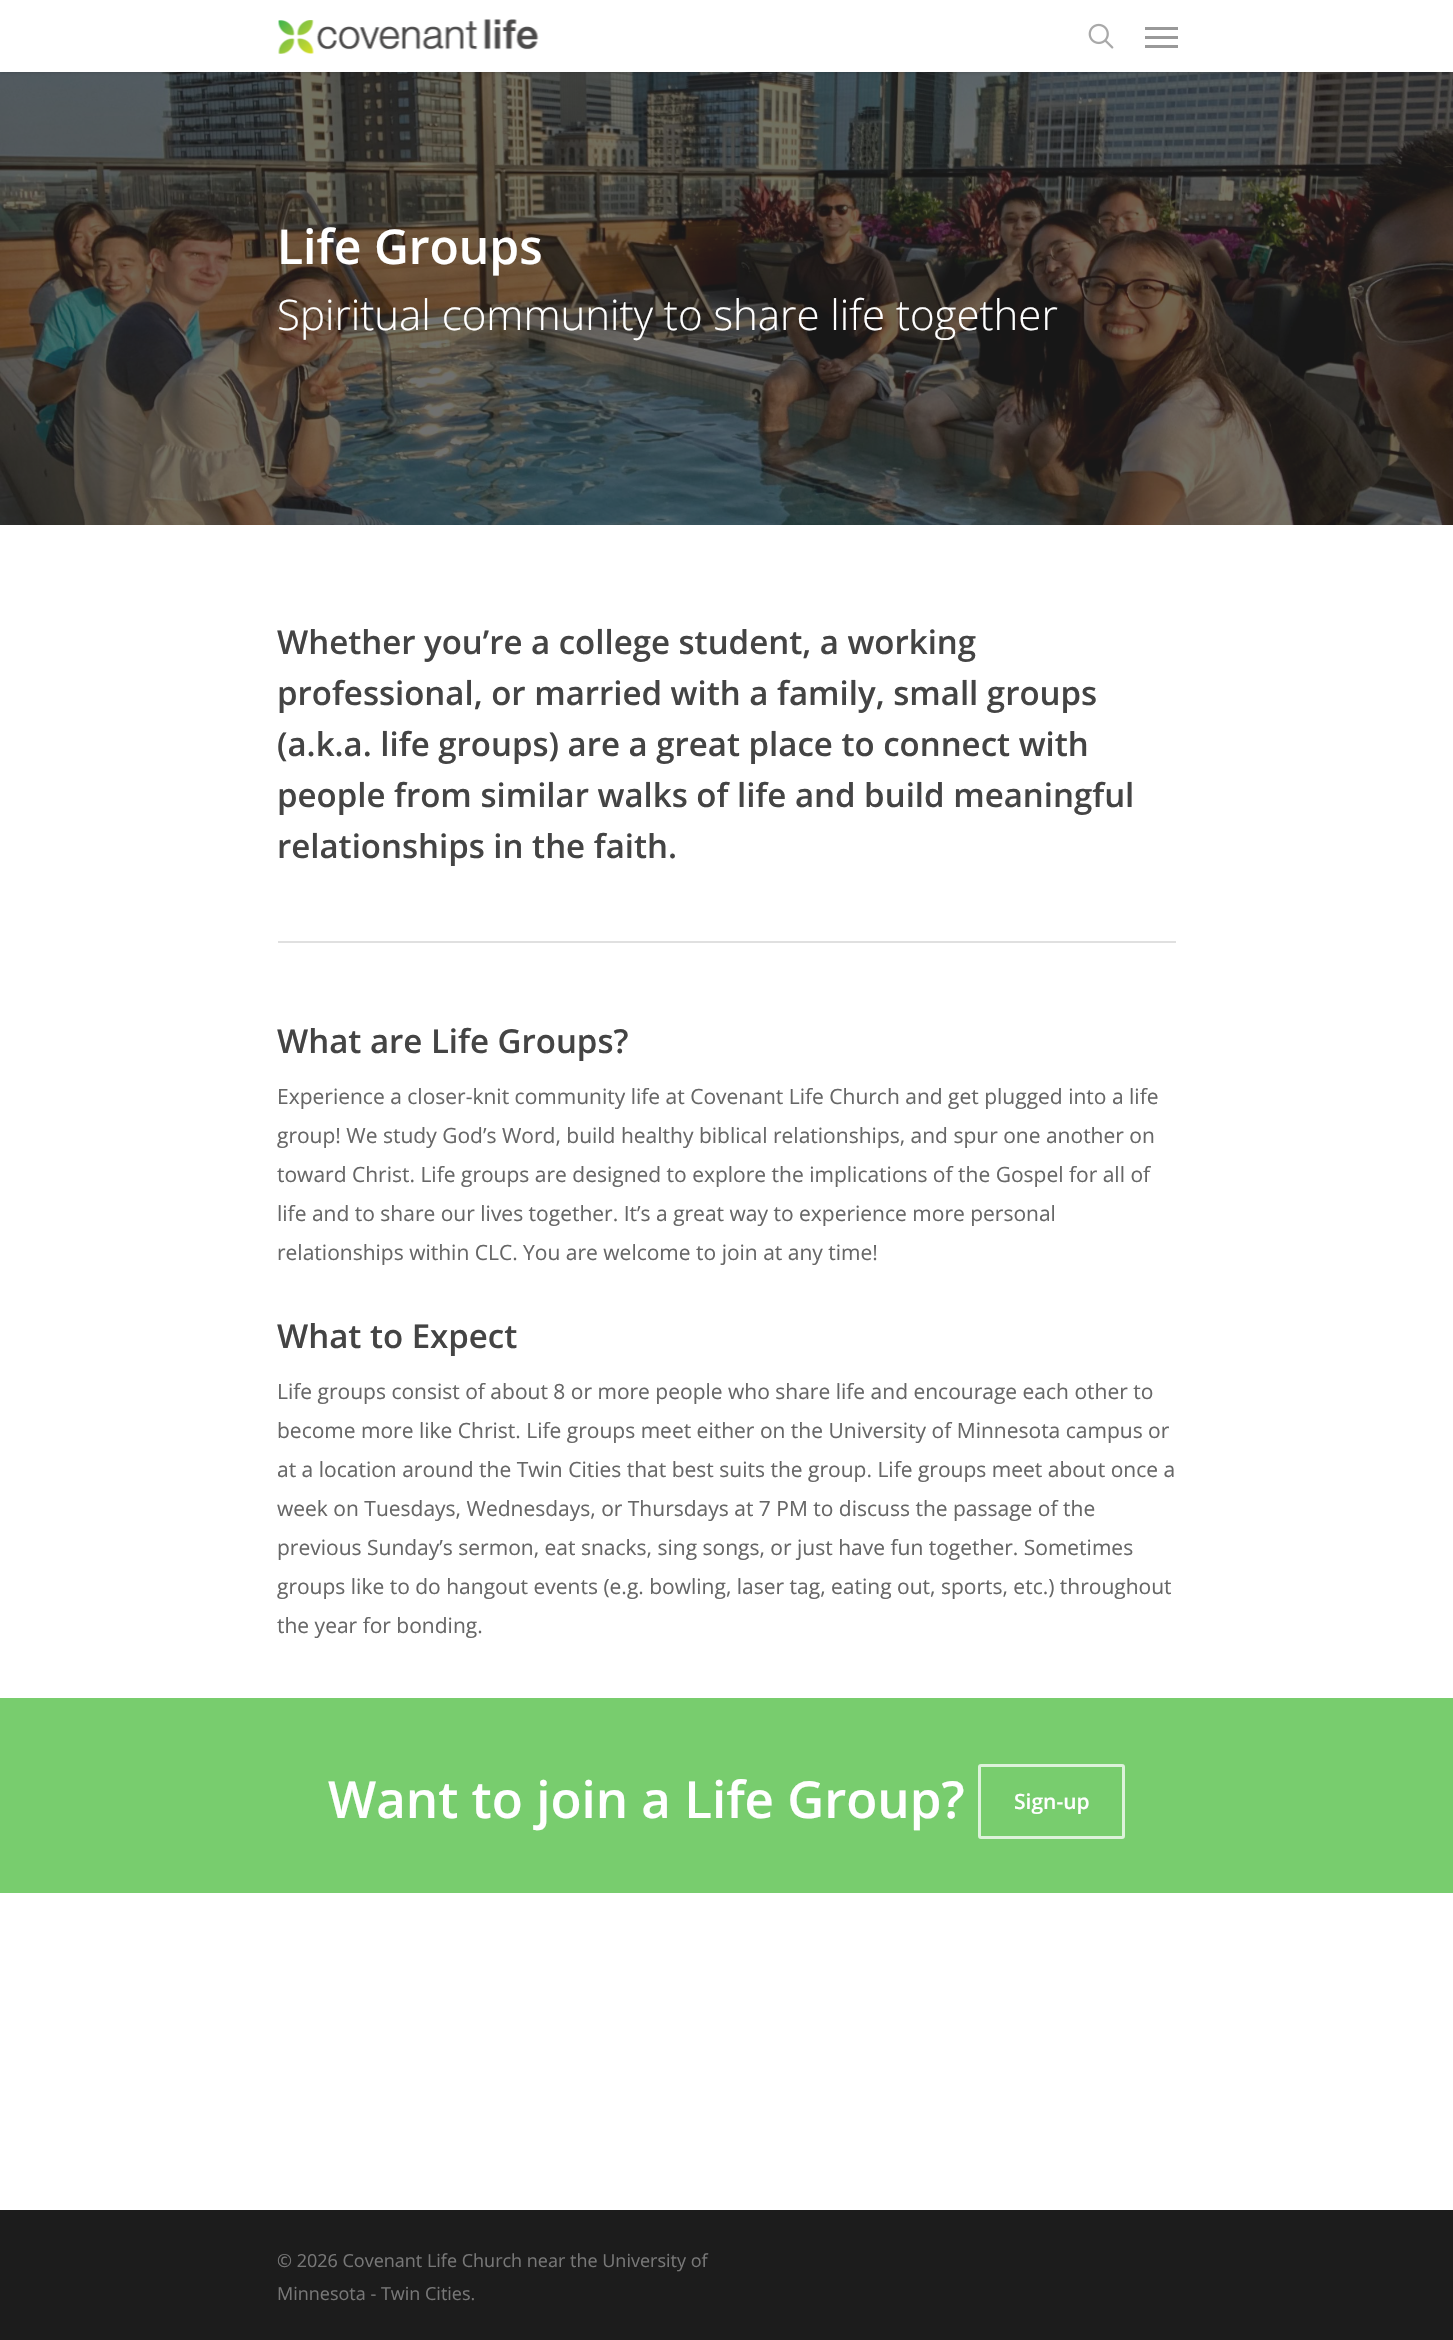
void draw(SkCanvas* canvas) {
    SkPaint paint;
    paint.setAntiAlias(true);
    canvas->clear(0xFFFFFFFF);
    canvas->drawImageRect(SkImages::DeferredFromEncodedData(SkData::MakeFromFileName("img3.png")), SkRect::MakeXYWH(0, 72, 1453, 453), SkSamplingOptions());
    paint.setColor(0x38000000);
    paint.setMaskFilter(SkMaskFilter::MakeBlur(kNormal_SkBlurStyle, 2));
    canvas->drawRect(SkRect::MakeXYWH(0, 0, 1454, 72), paint);
    paint.setMaskFilter(nullptr);
    paint.setColor(0xFFFFFFFF);
    canvas->drawRect(SkRect::MakeXYWH(0, 0, 1453, 72), paint);
    canvas->drawImageRect(SkImages::DeferredFromEncodedData(SkData::MakeFromFileName("img1.png")), SkRect::MakeXYWH(278, 19, 261, 35), SkSamplingOptions());
    canvas->drawImageRect(SkImages::DeferredFromEncodedData(SkData::MakeFromFileName("img2.png")), SkRect::MakeXYWH(1088, 23, 26, 26), SkSamplingOptions());
    paint.setColor(0xFF999999);
    canvas->drawRect(SkRect::MakeXYWH(1145, 27, 33, 3), paint);
    canvas->drawRect(SkRect::MakeXYWH(1145, 45, 33, 3), paint);
    canvas->drawRect(SkRect::MakeXYWH(1145, 36, 33, 3), paint);
    SkFont font1(fontMgr->matchFamilyStyle("Open Sans", SkFontStyle(600, SkFontStyle::kNormal_Width, SkFontStyle::kUpright_Slant)), 48);
    font1.setSubpixel(true);
    paint.setColor(0xFFFFFFFF);
    canvas->drawString("Life Groups", 277, 264, font1, paint);
    SkFont font2(fontMgr->matchFamilyStyle("Open Sans", SkFontStyle(300, SkFontStyle::kNormal_Width, SkFontStyle::kUpright_Slant)), 42);
    font2.setSubpixel(true);
    canvas->drawString("Spiritual community to share life together", 277, 330, font2, paint);
    SkFont font3(fontMgr->matchFamilyStyle("Open Sans", SkFontStyle(600, SkFontStyle::kNormal_Width, SkFontStyle::kUpright_Slant)), 33);
    font3.setSubpixel(true);
    paint.setColor(0xFF444444);
    canvas->drawString("Whether you’re a college student, a working", 277, 654, font3, paint);
    canvas->drawString("professional, or married with a family, small groups", 277, 705, font3, paint);
    canvas->drawString("(a.k.a. life groups) are a great place to connect with", 277, 756, font3, paint);
    canvas->drawString("people from similar walks of life and build meaningful", 277, 807, font3, paint);
    canvas->drawString("relationships in the faith.", 277, 858, font3, paint);
    paint.setColor(0xFFE0E0E0);
    canvas->drawRect(SkRect::MakeXYWH(278, 941, 898, 2), paint);
    paint.setColor(0xFF444444);
    canvas->drawString("What are Life Groups?", 277, 1053, font3, paint);
    SkFont font4(fontMgr->matchFamilyStyle("Open Sans", SkFontStyle::Normal()), 21);
    font4.setSubpixel(true);
    paint.setColor(0xFF676767);
    canvas->drawString("Experience a closer-knit community life at Covenant Life Church and get plugged into a life", 277, 1104, font4, paint);
    canvas->drawString("group! We study God’s Word, build healthy biblical relationships, and spur one another on", 277, 1143, font4, paint);
    canvas->drawString("toward Christ. Life groups are designed to explore the implications of the Gospel for all of", 277, 1182, font4, paint);
    canvas->drawString("life and to share our lives together. It’s a great way to experience more personal", 277, 1221, font4, paint);
    canvas->drawString("relationships within CLC. You are welcome to join at any time!", 277, 1260, font4, paint);
    paint.setColor(0xFF444444);
    canvas->drawString("What to Expect", 277, 1348, font3, paint);
    paint.setColor(0xFF676767);
    canvas->drawString("Life groups consist of about 8 or more people who share life and encourage each other to", 277, 1399, font4, paint);
    canvas->drawString("become more like Christ. Life groups meet either on the University of Minnesota campus or", 277, 1438, font4, paint);
    canvas->drawString("at a location around the Twin Cities that best suits the group. Life groups meet about once a", 277, 1477, font4, paint);
    canvas->drawString("week on Tuesdays, Wednesdays, or Thursdays at 7 PM to discuss the passage of the", 277, 1516, font4, paint);
    canvas->drawString("previous Sunday’s sermon, eat snacks, sing songs, or just have fun together. Sometimes", 277, 1555, font4, paint);
    canvas->drawString("groups like to do hangout events (e.g. bowling, laser tag, eating out, sports, etc.) throughout", 277, 1594, font4, paint);
    canvas->drawString("the year for bonding.", 277, 1633, font4, paint);
    paint.setColor(0xFF78CD6E);
    canvas->drawRect(SkRect::MakeXYWH(0, 1698, 1453, 195), paint);
    SkFont font5(fontMgr->matchFamilyStyle("Open Sans", SkFontStyle(600, SkFontStyle::kNormal_Width, SkFontStyle::kUpright_Slant)), 51);
    font5.setSubpixel(true);
    paint.setColor(0xFFFFFFFF);
    canvas->drawString("Want to join a Life Group?", 328, 1818, font5, paint);
    paint.setStyle(SkPaint::kStroke_Style);
    paint.setStrokeWidth(3);
    paint.setColor(0xFFDDF3DB);
    canvas->drawRoundRect(SkRect::MakeXYWH(979.5f, 1765.5f, 144, 72), 1.5f, 1.5f, paint);
    SkFont font6(fontMgr->matchFamilyStyle("Open Sans", SkFontStyle(600, SkFontStyle::kNormal_Width, SkFontStyle::kUpright_Slant)), 21);
    font6.setSubpixel(true);
    paint.setStyle(SkPaint::kFill_Style);
    paint.setColor(0xFFFFFFFF);
    canvas->drawString("Sign-up", 1014, 1809, font6, paint);
    paint.setColor(0xFF1C1C1C);
    canvas->drawRect(SkRect::MakeXYWH(0, 2210, 1453, 130), paint);
    SkFont font7(fontMgr->matchFamilyStyle("Open Sans", SkFontStyle::Normal()), 18);
    font7.setSubpixel(true);
    paint.setColor(0xFF777777);
    canvas->drawString("© 2026 Covenant Life Church near the University of", 277, 2267, font7, paint);
    canvas->drawString("Minnesota - Twin Cities.", 277, 2300, font7, paint);
}
